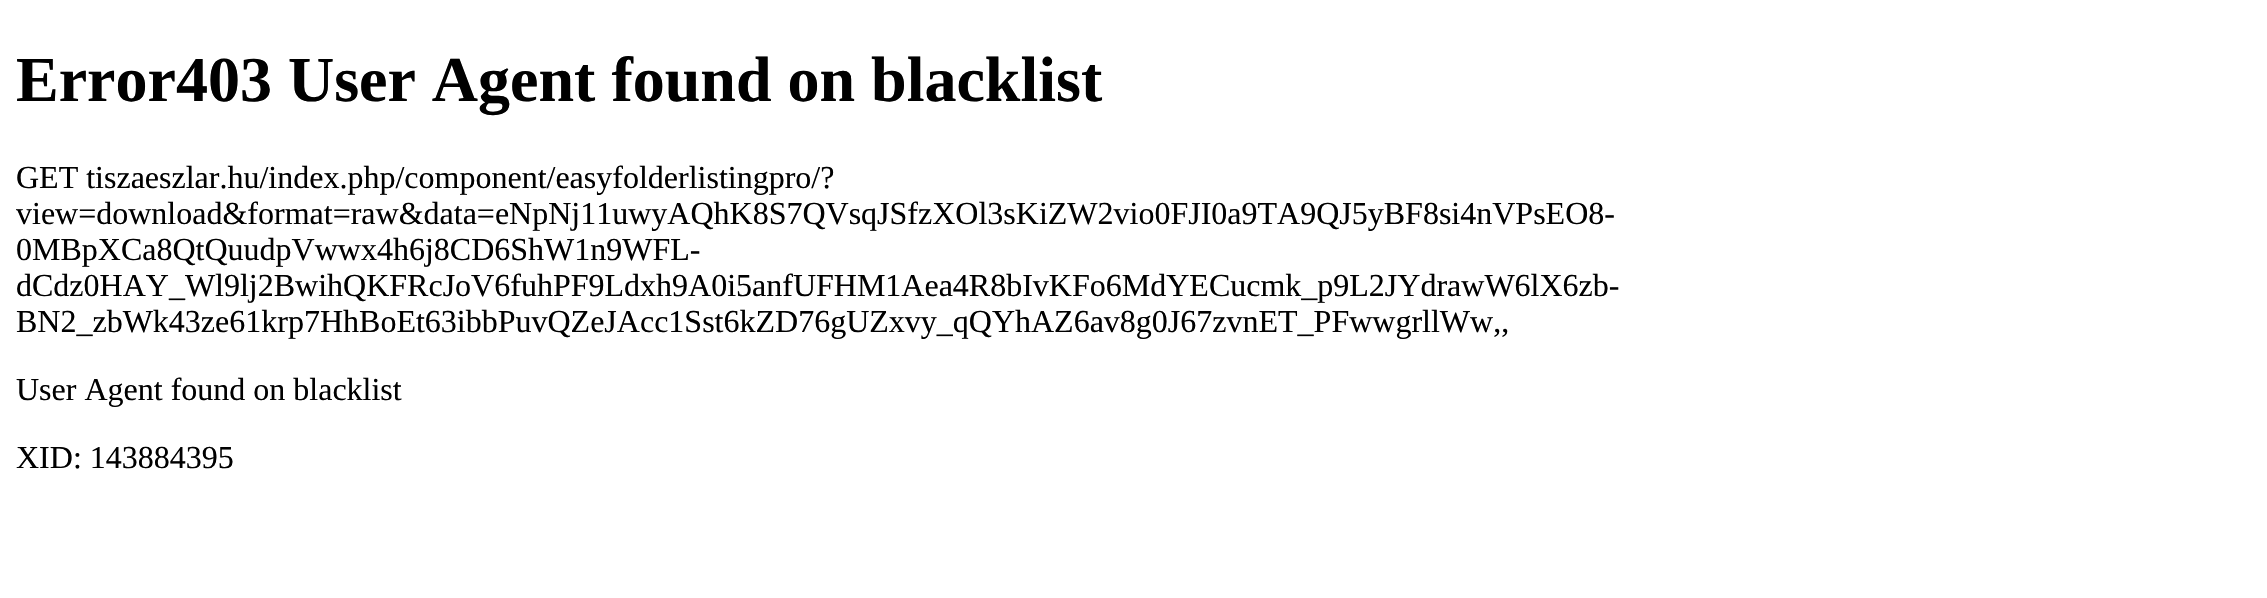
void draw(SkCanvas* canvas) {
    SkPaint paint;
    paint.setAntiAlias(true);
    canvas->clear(0xFFFFFFFF);
    SkFont font1(fontMgr->matchFamilyStyle("Liberation Serif", SkFontStyle::Bold()), 64);
    font1.setSubpixel(true);
    paint.setColor(0xFF000000);
    canvas->drawString("Error403 User Agent found on blacklist", 16, 101, font1, paint);
    SkFont font2(fontMgr->matchFamilyStyle("Liberation Serif", SkFontStyle::Normal()), 32);
    font2.setSubpixel(true);
    canvas->drawString("GET tiszaeszlar.hu/index.php/component/easyfolderlistingpro/?", 16, 188, font2, paint);
    canvas->drawString("view=download&format=raw&data=eNpNj11uwyAQhK8S7QVsqJSfzXOl3sKiZW2vio0FJI0a9TA9QJ5yBF8si4nVPsEO8-", 16, 224, font2, paint);
    canvas->drawString("0MBpXCa8QtQuudpVwwx4h6j8CD6ShW1n9WFL-", 16, 260, font2, paint);
    canvas->drawString("dCdz0HAY_Wl9lj2BwihQKFRcJoV6fuhPF9Ldxh9A0i5anfUFHM1Aea4R8bIvKFo6MdYECucmk_p9L2JYdrawW6lX6zb-", 16, 296, font2, paint);
    canvas->drawString("BN2_zbWk43ze61krp7HhBoEt63ibbPuvQZeJAcc1Sst6kZD76gUZxvy_qQYhAZ6av8g0J67zvnET_PFwwgrllWw,,", 16, 332, font2, paint);
    canvas->drawString("User Agent found on blacklist", 16, 400, font2, paint);
    canvas->drawString("XID: 143884395", 16, 468, font2, paint);
}
